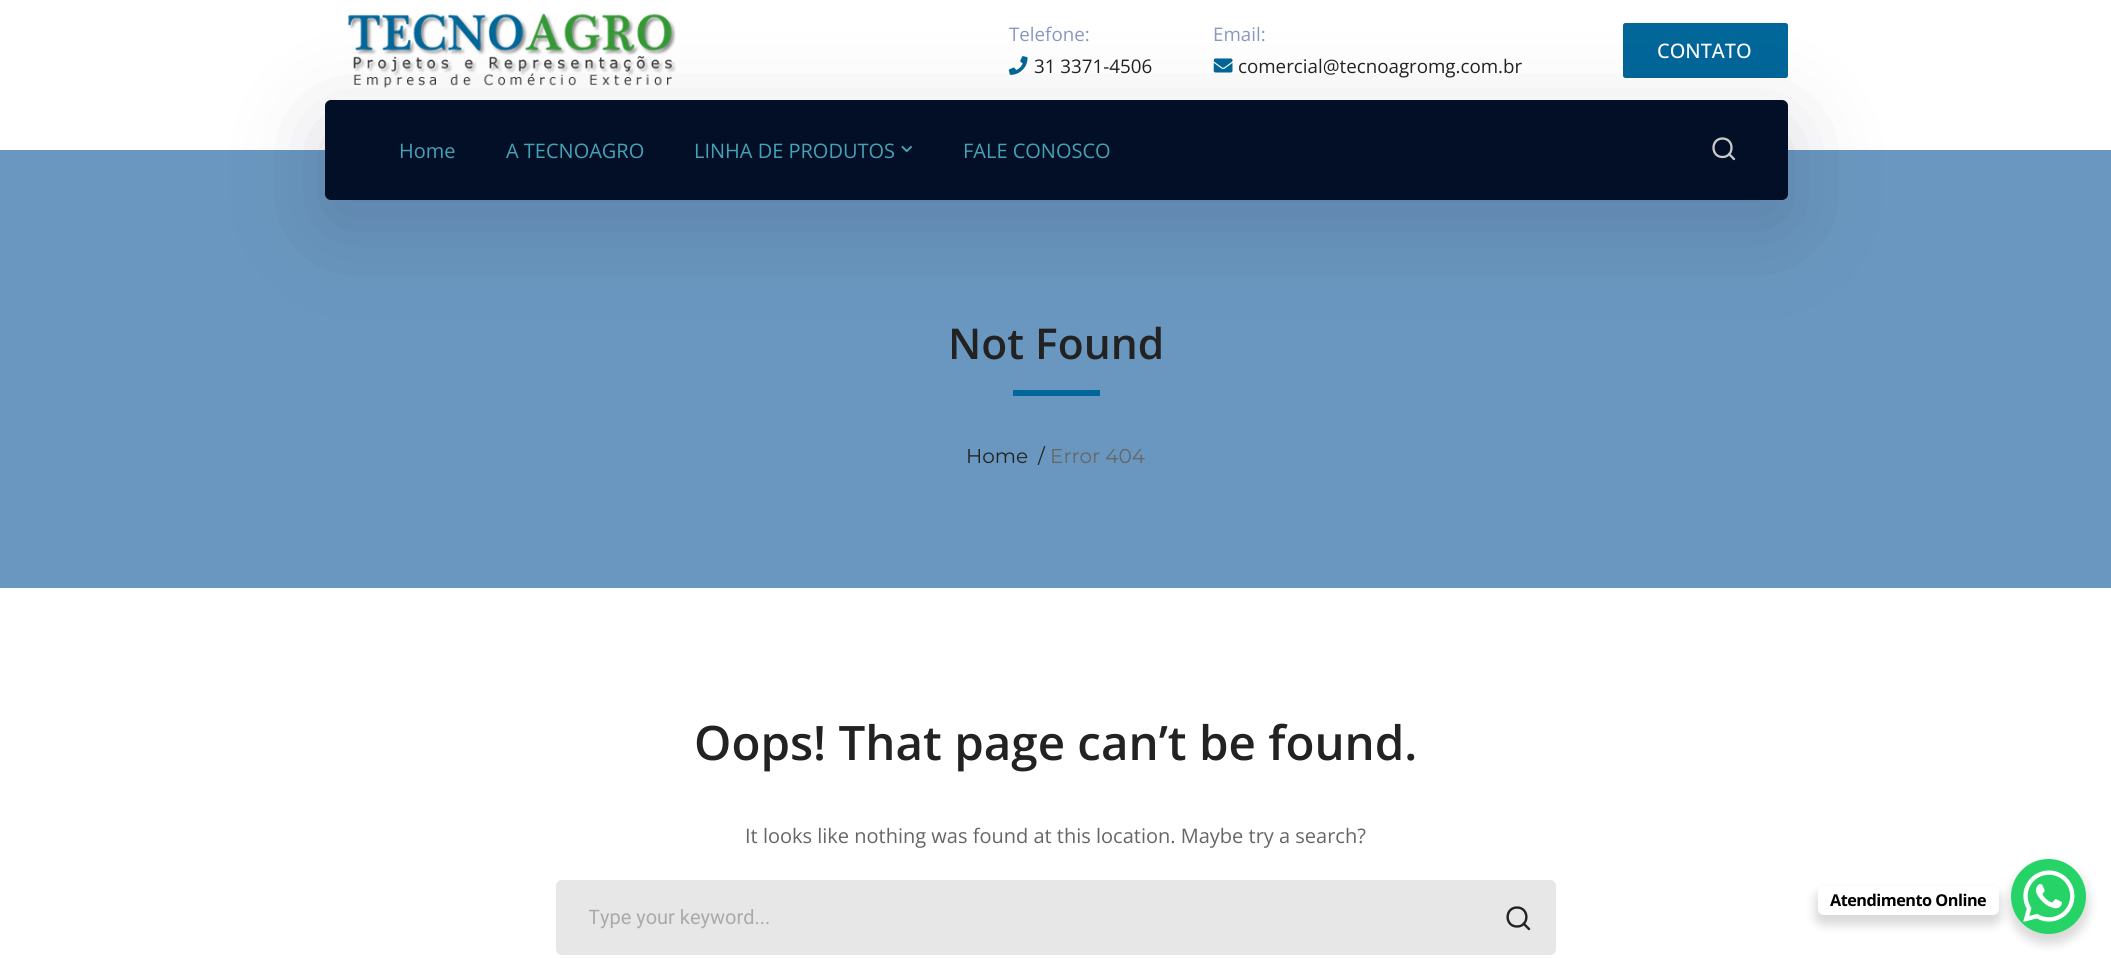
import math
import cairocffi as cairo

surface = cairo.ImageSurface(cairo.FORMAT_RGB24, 2111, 958)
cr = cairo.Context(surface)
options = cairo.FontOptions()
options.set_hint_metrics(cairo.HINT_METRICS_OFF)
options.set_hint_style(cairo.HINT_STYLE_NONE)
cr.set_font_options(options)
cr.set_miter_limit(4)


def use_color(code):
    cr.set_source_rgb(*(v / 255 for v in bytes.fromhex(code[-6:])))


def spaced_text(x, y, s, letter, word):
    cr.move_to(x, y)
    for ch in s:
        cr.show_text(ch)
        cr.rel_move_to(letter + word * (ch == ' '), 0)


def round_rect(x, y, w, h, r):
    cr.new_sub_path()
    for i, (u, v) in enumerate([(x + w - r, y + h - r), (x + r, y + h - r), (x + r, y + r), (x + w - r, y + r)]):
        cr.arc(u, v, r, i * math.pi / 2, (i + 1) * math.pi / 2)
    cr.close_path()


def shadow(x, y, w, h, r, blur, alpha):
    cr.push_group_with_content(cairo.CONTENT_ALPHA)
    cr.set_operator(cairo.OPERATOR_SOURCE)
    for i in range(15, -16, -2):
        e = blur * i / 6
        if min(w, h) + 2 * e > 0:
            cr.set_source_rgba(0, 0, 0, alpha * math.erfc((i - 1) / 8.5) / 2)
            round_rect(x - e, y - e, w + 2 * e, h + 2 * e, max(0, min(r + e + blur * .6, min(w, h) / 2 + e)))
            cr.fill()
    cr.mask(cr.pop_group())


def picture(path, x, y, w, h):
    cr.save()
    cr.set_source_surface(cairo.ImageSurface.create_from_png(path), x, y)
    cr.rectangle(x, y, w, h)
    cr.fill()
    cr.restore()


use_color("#ffffff")
cr.paint()
picture("img1.png", 347, 13, 329, 75)
cr.select_font_face("Open Sans")
cr.set_font_size(18.75)
use_color("#8a99c0")
cr.move_to(1009, 41)
cr.show_text("Telefone:")
picture("img2.png", 1008, 56, 20, 19)
use_color("#222222")
cr.move_to(1034, 73)
cr.show_text("31 3371-4506")
use_color("#8a99c0")
cr.move_to(1213, 41)
cr.show_text("Email:")
picture("img3.png", 1213, 58, 20, 15)
use_color("#222222")
cr.move_to(1238, 73)
cr.show_text("comercial@tecnoagromg.com.br")
use_color("#016699")
round_rect(1623, 23, 165, 55, 2.5)
cr.fill()
cr.select_font_face("Open Sans Medium")
cr.set_font_size(20)
use_color("#ffffff")
cr.move_to(1657, 58)
cr.show_text("CONTATO")
use_color("#6997bf")
cr.rectangle(0, 150, 2111, 438)
cr.fill()
use_color("#262a4c")
shadow(325, 125, 1463, 100, 6, 44, 0.2)
use_color("#030f27")
round_rect(325, 100, 1463, 100, 6)
cr.fill()
cr.select_font_face("Open Sans")
use_color("#44a2b5")
cr.move_to(399, 158)
cr.show_text("Home")
cr.move_to(506, 158)
cr.show_text("A TECNOAGRO")
cr.move_to(694, 158)
cr.show_text("LINHA DE PRODUTOS")
picture("img4.png", 901, 145, 11, 8)
cr.move_to(963, 158)
cr.show_text("FALE CONOSCO")
cr.new_path()
cr.move_to(1722.5, 138.5)
cr.curve_to(1734.5, 138.5, 1734.5, 157, 1722.5, 157)
cr.curve_to(1710.5, 157, 1710.5, 138.5, 1722.5, 138.5)
cr.close_path()
cr.move_to(1734, 159)
cr.line_to(1729, 154)
use_color("#cacaca")
cr.set_line_width(2.3)
cr.set_line_cap(cairo.LINE_CAP_ROUND)
cr.set_line_join(cairo.LINE_JOIN_ROUND)
cr.stroke()
cr.select_font_face("Open Sans SemiBold")
cr.set_font_size(42.5)
use_color("#222222")
cr.move_to(948, 359)
cr.show_text("Not Found")
use_color("#016699")
cr.rectangle(1013, 390, 87, 6)
cr.fill()
cr.select_font_face("Montserrat")
cr.set_font_size(20)
use_color("#222222")
cr.move_to(966, 463)
cr.show_text("Home")
cr.move_to(1038, 463)
cr.show_text("/")
use_color("#666666")
cr.move_to(1050, 463)
cr.show_text("Error 404")
cr.select_font_face("Open Sans SemiBold")
cr.set_font_size(47.5)
use_color("#222222")
cr.move_to(694, 760)
cr.show_text("Oops! That page can’t be found.")
cr.select_font_face("Open Sans")
cr.set_font_size(20)
use_color("#666666")
cr.move_to(745, 843)
cr.show_text("It looks like nothing was found at this location. Maybe try a search?")
use_color("#e7e7e7")
round_rect(556.5, 880.5, 999, 74, 5.5)
cr.fill_preserve()
cr.set_line_width(1)
cr.set_line_cap(cairo.LINE_CAP_BUTT)
cr.set_line_join(cairo.LINE_JOIN_MITER)
cr.stroke()
cr.save()
cr.rectangle(589, 906, 935, 24)
cr.clip()
cr.select_font_face("Roboto")
use_color("#aaaaaa")
cr.move_to(588, 924)
cr.show_text("Type your keyword...")
cr.restore()
cr.new_path()
cr.move_to(1517, 907.5)
cr.curve_to(1529.5, 907.5, 1529.5, 926.5, 1517, 926.5)
cr.curve_to(1504.5, 926.5, 1504.5, 907.5, 1517, 907.5)
cr.close_path()
cr.move_to(1529, 929)
cr.line_to(1523.5, 923.5)
use_color("#222222")
cr.set_line_width(2.4)
cr.set_line_cap(cairo.LINE_CAP_ROUND)
cr.set_line_join(cairo.LINE_JOIN_ROUND)
cr.stroke()
use_color("#000000")
shadow(2009, 864, 80, 80, 40, 5, 0.15)
use_color("#25d366")
cr.arc(2048.5, 896.5, 37.5, 0, 2 * math.pi)
cr.fill()
use_color("#000000")
shadow(1815, 891, 186, 34, 9, 5, 0.15)
use_color("#ffffff")
round_rect(1818, 886, 181, 29, 6)
cr.fill()
cr.select_font_face("Open Sans", cairo.FONT_SLANT_NORMAL, cairo.FONT_WEIGHT_BOLD)
cr.set_font_size(16.25)
use_color("#000000")
spaced_text(1830, 906, "Atendimento Online", -0.5, 0)
picture("img5.png", 2023, 870, 52, 52)
surface.write_to_png("result.png")
